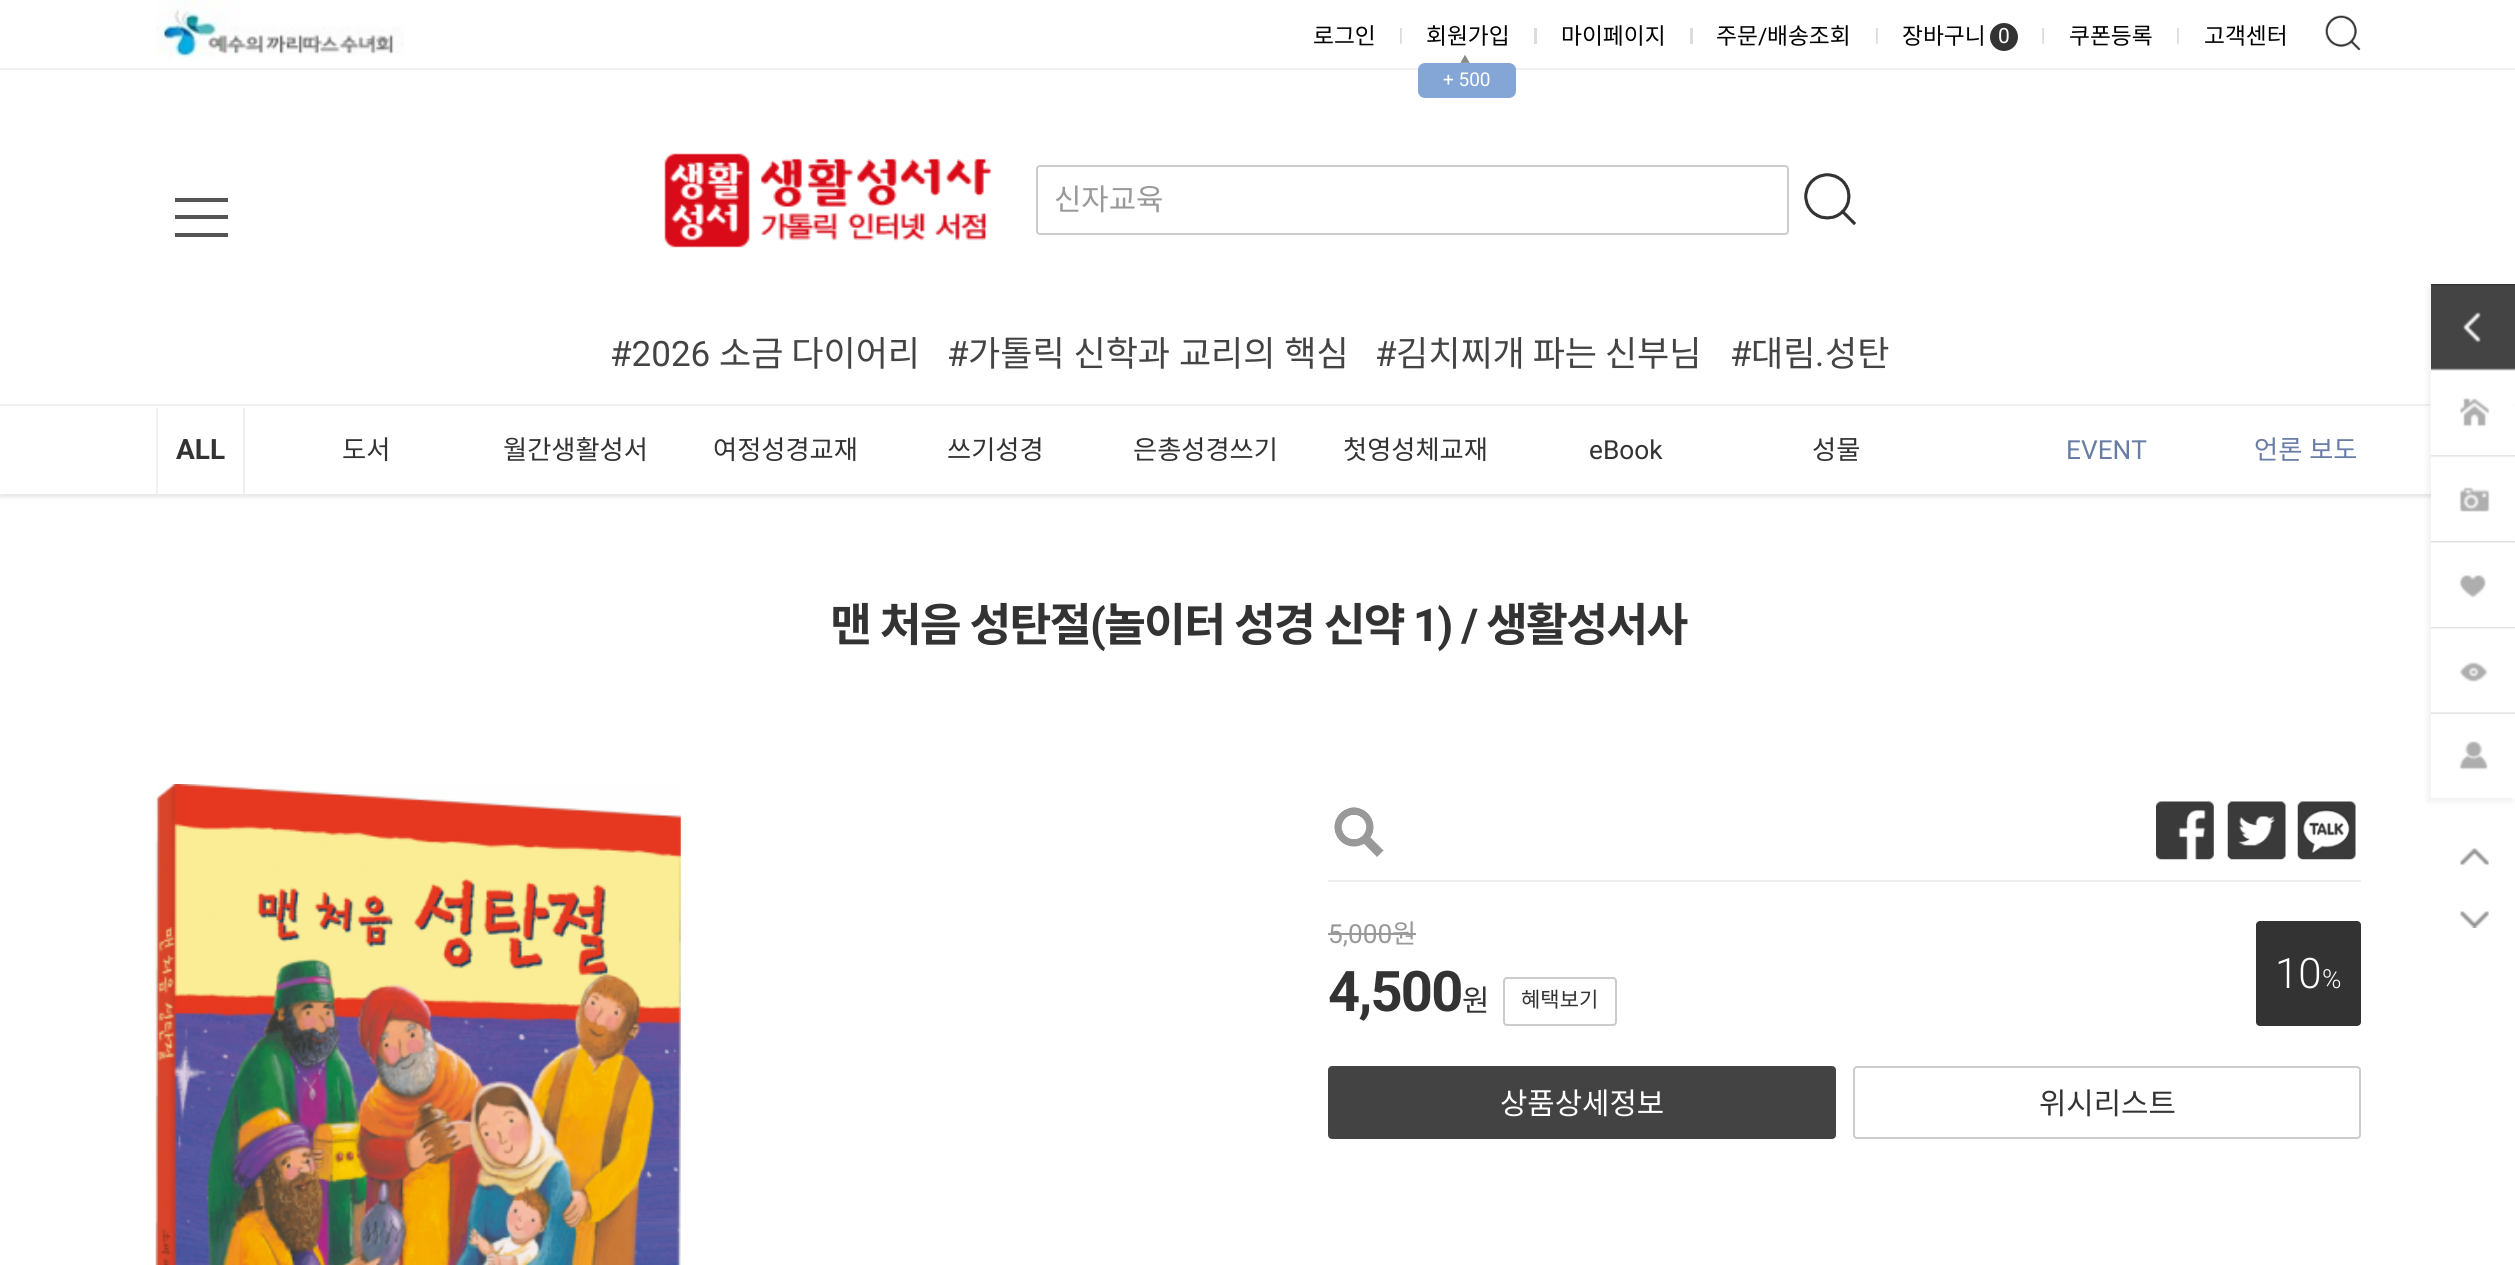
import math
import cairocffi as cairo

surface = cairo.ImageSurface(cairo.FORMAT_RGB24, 2515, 1265)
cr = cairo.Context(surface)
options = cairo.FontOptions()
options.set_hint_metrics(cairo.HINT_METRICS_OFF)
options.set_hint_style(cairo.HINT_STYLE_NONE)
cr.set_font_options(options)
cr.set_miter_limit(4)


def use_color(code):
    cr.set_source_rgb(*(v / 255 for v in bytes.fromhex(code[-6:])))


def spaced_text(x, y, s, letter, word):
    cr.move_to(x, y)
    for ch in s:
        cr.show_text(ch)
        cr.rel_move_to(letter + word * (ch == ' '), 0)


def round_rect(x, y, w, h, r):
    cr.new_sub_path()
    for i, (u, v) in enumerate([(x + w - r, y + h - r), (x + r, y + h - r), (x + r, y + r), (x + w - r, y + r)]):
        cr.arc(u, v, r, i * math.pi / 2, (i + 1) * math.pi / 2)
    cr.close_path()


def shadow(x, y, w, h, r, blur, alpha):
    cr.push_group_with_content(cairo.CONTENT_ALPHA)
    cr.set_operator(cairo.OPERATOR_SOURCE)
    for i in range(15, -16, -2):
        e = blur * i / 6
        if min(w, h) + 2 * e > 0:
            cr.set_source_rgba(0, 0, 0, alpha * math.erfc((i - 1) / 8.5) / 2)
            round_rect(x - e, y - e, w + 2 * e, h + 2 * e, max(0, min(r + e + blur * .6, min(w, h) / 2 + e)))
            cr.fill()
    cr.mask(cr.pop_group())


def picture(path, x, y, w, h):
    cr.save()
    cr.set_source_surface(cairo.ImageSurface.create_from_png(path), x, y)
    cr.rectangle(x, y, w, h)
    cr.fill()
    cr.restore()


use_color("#ffffff")
cr.paint()
use_color("#000000")
shadow(0, 4, 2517, 493, 0, 2, 0.1)
use_color("#ffffff")
cr.rectangle(0, 1, 2515, 493)
cr.fill()
use_color("#f0f0f0")
cr.rectangle(0, 68, 2515, 2)
cr.fill()
picture("img1.png", 156, 0, 248, 61)
cr.select_font_face("Noto Sans KR")
cr.set_font_size(22.75)
use_color("#000000")
cr.move_to(1313, 44)
cr.show_text("로그인")
picture("img2.png", 1400, 28, 2, 16)
cr.move_to(1426, 44)
cr.show_text("회원가입")
use_color("#84a6d6")
round_rect(1418, 63, 98, 35, 7)
cr.fill()
cr.set_font_size(10)
use_color("#8a8a8a")
cr.move_to(1460, 63)
cr.show_text("▲")
cr.select_font_face("Roboto")
cr.set_font_size(19)
use_color("#ffffff")
cr.move_to(1443, 86)
cr.show_text("+ 500")
use_color("#dcdcdc")
cr.rectangle(1534, 28, 3, 16)
cr.fill()
cr.select_font_face("Noto Sans KR")
cr.set_font_size(22.75)
use_color("#000000")
cr.move_to(1561, 44)
cr.show_text("마이페이지")
use_color("#dcdcdc")
cr.rectangle(1690, 28, 3, 16)
cr.fill()
use_color("#000000")
cr.move_to(1716, 44)
cr.show_text("주문")
cr.select_font_face("Roboto")
cr.move_to(1758, 44)
cr.show_text("/")
cr.select_font_face("Noto Sans KR")
cr.move_to(1767, 44)
cr.show_text("배송조회")
picture("img2.png", 1876, 28, 2, 16)
cr.move_to(1902, 44)
cr.show_text("장바구니")
use_color("#333333")
cr.new_path()
cr.arc(2004, 37, 14, 0, 2 * math.pi)
cr.fill()
cr.select_font_face("Roboto")
cr.set_font_size(21)
use_color("#ffffff")
cr.move_to(1998, 43)
cr.show_text("0")
picture("img3.png", 2042, 28, 2, 16)
cr.select_font_face("Noto Sans KR")
cr.set_font_size(22.75)
use_color("#000000")
cr.move_to(2069, 44)
cr.show_text("쿠폰등록")
picture("img2.png", 2177, 28, 2, 16)
cr.move_to(2204, 44)
cr.show_text("고객센터")
picture("img4.png", 2325, 15, 36, 36)
use_color("#555555")
cr.rectangle(175, 198, 53, 4)
cr.fill()
cr.rectangle(175, 215, 53, 4)
cr.fill()
cr.rectangle(175, 233, 53, 4)
cr.fill()
picture("img5.png", 664, 153, 327, 95)
round_rect(1037, 166, 751, 68, 3)
use_color("#cccccc")
cr.stroke()
cr.set_font_size(29.75)
use_color("#999999")
cr.move_to(1054, 210)
cr.show_text("신자교육")
picture("img6.png", 1804, 173, 52, 52)
cr.select_font_face("Roboto")
cr.set_font_size(35)
use_color("#444444")
cr.move_to(610, 366)
cr.show_text("#2026")
cr.select_font_face("Noto Sans KR")
cr.move_to(719, 366)
cr.show_text("소금 다이어리")
cr.select_font_face("Roboto")
cr.move_to(947, 366)
cr.show_text("#")
cr.select_font_face("Noto Sans KR")
spaced_text(968, 366, "가톨릭 신학과 교리의 핵심", 0, 1)
cr.select_font_face("Roboto")
cr.move_to(1375, 366)
cr.show_text("#")
cr.select_font_face("Noto Sans KR")
cr.move_to(1396, 366)
cr.show_text("김치찌개 파는 신부님")
cr.select_font_face("Roboto")
cr.move_to(1730, 366)
cr.show_text("#")
cr.select_font_face("Noto Sans KR")
cr.move_to(1751, 366)
cr.show_text("대림")
cr.select_font_face("Roboto")
cr.move_to(1815, 366)
cr.show_text(".")
cr.select_font_face("Noto Sans KR")
cr.move_to(1825, 366)
cr.show_text("성탄")
use_color("#f0f0f0")
cr.rectangle(0, 404, 2515, 2)
cr.fill()
cr.rectangle(243, 408, 2, 86)
cr.fill()
cr.rectangle(156, 408, 2, 86)
cr.fill()
cr.select_font_face("Roboto", cairo.FONT_SLANT_NORMAL, cairo.FONT_WEIGHT_BOLD)
cr.set_font_size(28)
use_color("#333333")
cr.move_to(176, 459)
cr.show_text("ALL")
cr.select_font_face("Noto Sans KR")
cr.set_font_size(26.25)
cr.move_to(342, 459)
cr.show_text("도서")
cr.move_to(503, 459)
cr.show_text("월간생활성서")
cr.move_to(713, 459)
cr.show_text("여정성경교재")
cr.move_to(947, 459)
cr.show_text("쓰기성경")
cr.move_to(1133, 459)
cr.show_text("은총성경쓰기")
cr.move_to(1343, 459)
cr.show_text("첫영성체교재")
cr.select_font_face("Roboto")
cr.move_to(1589, 459)
cr.show_text("eBook")
cr.select_font_face("Noto Sans KR")
cr.move_to(1812, 459)
cr.show_text("성물")
cr.select_font_face("Roboto")
use_color("#697da6")
cr.move_to(2066, 459)
cr.show_text("EVENT")
cr.select_font_face("Noto Sans KR")
spaced_text(2254, 459, "언론 보도", 0, 1)
cr.save()
cr.set_fill_rule(cairo.FILL_RULE_EVEN_ODD)
cr.new_path()
cr.move_to(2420, 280)
cr.line_to(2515, 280)
cr.line_to(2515, 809)
cr.line_to(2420, 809)
cr.close_path()
cr.move_to(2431, 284)
cr.line_to(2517, 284)
cr.line_to(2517, 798)
cr.line_to(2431, 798)
cr.close_path()
cr.clip()
use_color("#000000")
shadow(2427, 287, 86, 515, 0, 2, 0.05)
cr.restore()
use_color("#333333")
cr.rectangle(2431, 284, 84, 2)
cr.fill()
use_color("#e0e0e0")
cr.rectangle(2431, 369, 84, 2)
cr.fill()
picture("img7.png", 2431, 285, 84, 85)
cr.rectangle(2431, 455, 84, 2)
cr.fill()
picture("img8.png", 2430, 370, 85, 86)
picture("img9.png", 2431, 456, 84, 56)
cr.rectangle(2431, 541, 84, 2)
cr.fill()
picture("img10.png", 2431, 542, 84, 56)
cr.rectangle(2431, 627, 84, 2)
cr.fill()
cr.rectangle(2431, 712, 84, 2)
cr.fill()
picture("img11.png", 2431, 628, 84, 85)
picture("img12.png", 2431, 713, 84, 57)
picture("img13.png", 2459, 848, 30, 17)
picture("img14.png", 2459, 911, 30, 17)
cr.select_font_face("Noto Sans KR", cairo.FONT_SLANT_NORMAL, cairo.FONT_WEIGHT_BOLD)
cr.set_font_size(45.5)
use_color("#333333")
spaced_text(830, 641, "맨 처음 성탄절", -1.75, 1)
cr.select_font_face("Roboto", cairo.FONT_SLANT_NORMAL, cairo.FONT_WEIGHT_BOLD)
spaced_text(1090, 641, "(", -1.75, 0)
cr.select_font_face("Noto Sans KR", cairo.FONT_SLANT_NORMAL, cairo.FONT_WEIGHT_BOLD)
spaced_text(1104, 641, "놀이터 성경 신약", -1.75, 1)
cr.select_font_face("Roboto", cairo.FONT_SLANT_NORMAL, cairo.FONT_WEIGHT_BOLD)
spaced_text(1413, 641, "1) /", -1.75, 0)
cr.select_font_face("Noto Sans KR", cairo.FONT_SLANT_NORMAL, cairo.FONT_WEIGHT_BOLD)
spaced_text(1486, 641, "생활성서사", -1.75, 0)
picture("img15.png", 155, 784, 526, 481)
use_color("#eeeeee")
cr.rectangle(1328, 880, 1033, 2)
cr.fill()
picture("img16.png", 1334, 807, 50, 50)
picture("img17.png", 2156, 801, 58, 59)
picture("img18.png", 2227, 801, 59, 59)
picture("img19.png", 2297, 801, 59, 59)
cr.select_font_face("Roboto")
cr.set_font_size(26.25)
use_color("#999999")
cr.move_to(1328, 943)
cr.show_text("5,000")
cr.select_font_face("Noto Sans KR")
cr.move_to(1392, 943)
cr.show_text("원")
cr.rectangle(1328, 933, 88, 2)
cr.fill()
cr.select_font_face("Roboto", cairo.FONT_SLANT_NORMAL, cairo.FONT_WEIGHT_BOLD)
cr.set_font_size(56)
use_color("#333333")
spaced_text(1328, 1011, "4,500", -1.75, 0)
cr.select_font_face("Noto Sans KR")
cr.set_font_size(29.75)
cr.move_to(1462, 1011)
cr.show_text("원")
round_rect(1504, 978, 112, 47, 3)
use_color("#cccccc")
cr.stroke()
cr.set_font_size(21)
use_color("#333333")
cr.move_to(1521, 1007)
cr.show_text("혜택보기")
round_rect(2256, 921, 105, 105, 4)
cr.fill()
cr.select_font_face("Roboto Light")
cr.set_font_size(42)
use_color("#ffffff")
cr.move_to(2275, 988)
cr.show_text("10")
cr.set_font_size(26.25)
cr.move_to(2322, 988)
cr.show_text("%")
use_color("#434343")
round_rect(1329, 1067, 506, 71, 3)
cr.fill_preserve()
cr.stroke()
cr.select_font_face("Noto Sans KR")
cr.set_font_size(29.75)
use_color("#ffffff")
cr.move_to(1500, 1114)
cr.show_text("상품상세정보")
round_rect(1854, 1067, 506, 71, 3)
use_color("#cccccc")
cr.stroke()
use_color("#333333")
cr.move_to(2039, 1114)
cr.show_text("위시리스트")
surface.write_to_png("result.png")
